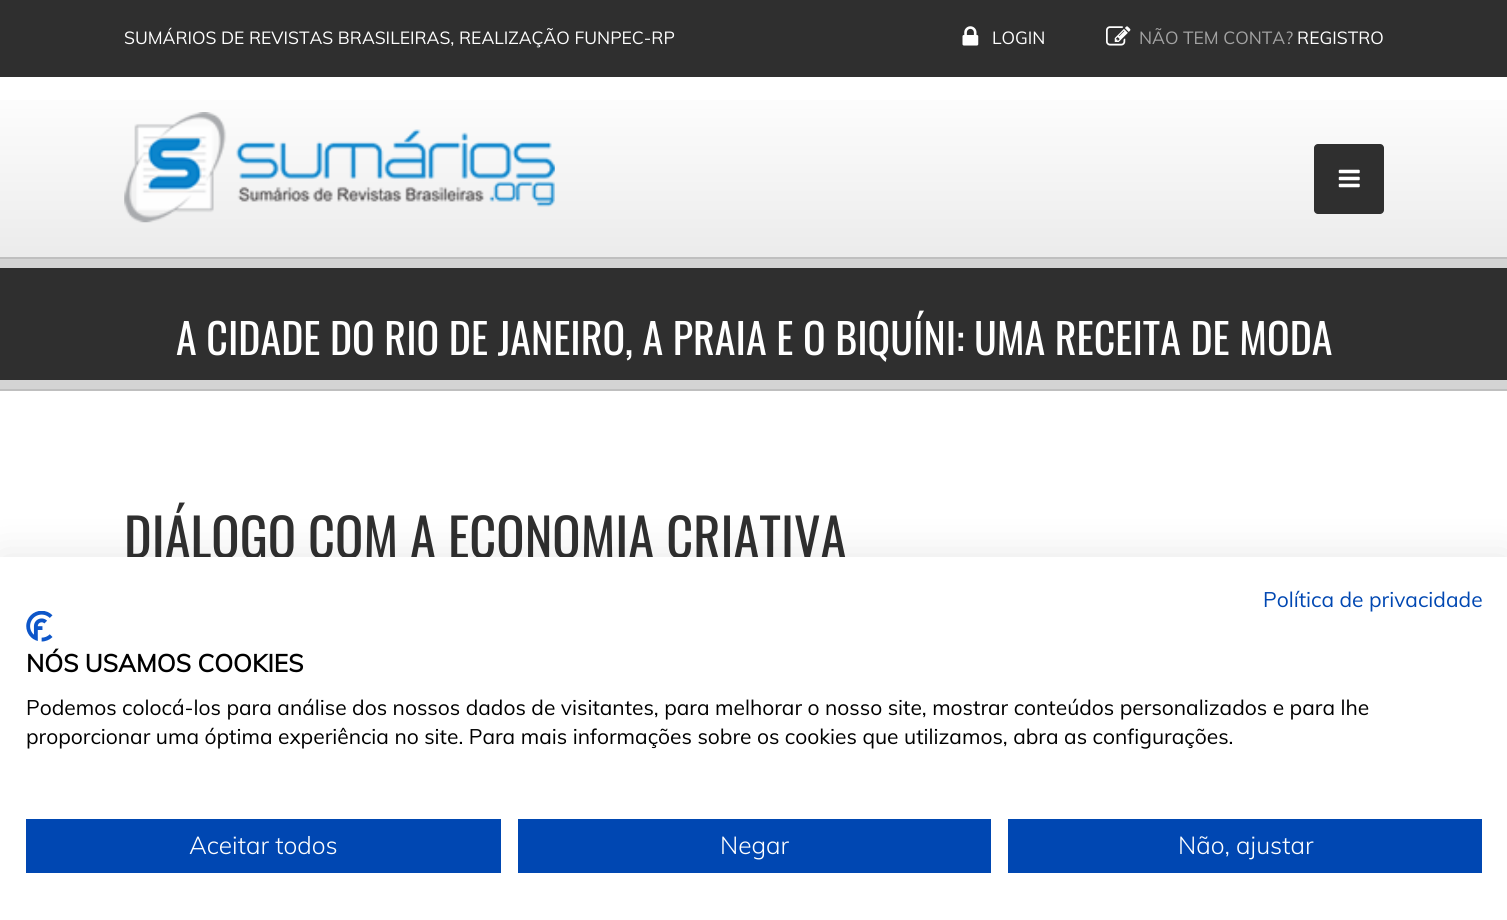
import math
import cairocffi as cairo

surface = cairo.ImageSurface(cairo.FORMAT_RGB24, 1507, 920)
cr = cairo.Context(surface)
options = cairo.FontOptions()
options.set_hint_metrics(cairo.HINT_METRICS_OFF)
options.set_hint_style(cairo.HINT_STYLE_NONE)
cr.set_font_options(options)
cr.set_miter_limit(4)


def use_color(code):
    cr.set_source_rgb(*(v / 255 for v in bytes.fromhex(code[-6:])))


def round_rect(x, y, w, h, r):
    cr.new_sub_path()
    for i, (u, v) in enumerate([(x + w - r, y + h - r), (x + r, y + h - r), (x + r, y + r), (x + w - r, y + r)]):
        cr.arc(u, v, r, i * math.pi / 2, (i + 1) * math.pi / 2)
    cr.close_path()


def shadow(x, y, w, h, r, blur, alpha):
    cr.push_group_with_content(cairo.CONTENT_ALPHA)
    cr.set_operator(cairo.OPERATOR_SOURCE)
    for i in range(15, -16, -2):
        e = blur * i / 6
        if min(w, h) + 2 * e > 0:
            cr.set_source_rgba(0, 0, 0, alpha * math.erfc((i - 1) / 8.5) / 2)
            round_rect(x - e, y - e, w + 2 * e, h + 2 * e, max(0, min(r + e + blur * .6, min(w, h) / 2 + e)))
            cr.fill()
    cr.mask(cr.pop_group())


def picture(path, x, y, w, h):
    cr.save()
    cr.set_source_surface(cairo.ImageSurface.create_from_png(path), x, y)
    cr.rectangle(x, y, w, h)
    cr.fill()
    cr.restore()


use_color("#ffffff")
cr.paint()
use_color("#2f2f2f")
cr.rectangle(0, 0, 1507, 77)
cr.fill()
cr.select_font_face("Muli")
cr.set_font_size(17.5)
use_color("#ffffff")
cr.move_to(124, 44)
cr.show_text("SUMÁRIOS DE REVISTAS BRASILEIRAS, REALIZAÇÃO FUNPEC-RP")
picture("img1.png", 962, 26, 17, 20)
cr.move_to(992, 44)
cr.show_text("LOGIN")
picture("img2.png", 1106, 26, 25, 20)
use_color("#a3a3a3")
cr.move_to(1139, 44)
cr.show_text("NÃO TEM CONTA?")
use_color("#ffffff")
cr.move_to(1297, 44)
cr.show_text("REGISTRO")
use_color("#ececec")
cr.rectangle(0, 252, 1507, 5)
cr.fill()
gradient = cairo.LinearGradient(754, 77, 754, 252)
gradient.add_color_stop_rgba(0, 1, 1, 1, 1)
gradient.add_color_stop_rgba(1, 0.925, 0.925, 0.925, 1)
cr.set_source(gradient)
cr.rectangle(0, 100, 1507, 152)
cr.fill()
picture("img3.png", 124, 112, 431, 111)
use_color("#2f2f2f")
round_rect(1314, 144, 70, 70, 4)
cr.fill()
picture("img4.png", 1338, 169, 22, 19)
cr.rectangle(0, 268, 1507, 112)
cr.fill()
use_color("#d4d4d4")
cr.rectangle(0, 259, 1507, 9)
cr.fill()
cr.rectangle(0, 380, 1507, 9)
cr.fill()
use_color("#bfbfbf")
cr.rectangle(0, 257, 1507, 2)
cr.fill()
cr.select_font_face("Oswald")
cr.set_font_size(42)
use_color("#ffffff")
cr.move_to(176, 355)
cr.show_text("A CIDADE DO RIO DE JANEIRO, A PRAIA E O BIQUÍNI: UMA RECEITA DE MODA")
use_color("#bfbfbf")
cr.rectangle(0, 389, 1507, 2)
cr.fill()
cr.set_font_size(52.5)
use_color("#2f2f2f")
cr.move_to(124, 558)
cr.show_text("DIÁLOGO COM A ECONOMIA CRIATIVA")
use_color("#000000")
shadow(0, 557, 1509, 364, 0, 21, 0.1)
use_color("#ffffff")
cr.rectangle(0, 557, 1507, 363)
cr.fill()
cr.select_font_face("Muli")
cr.set_font_size(21)
use_color("#0047b2")
cr.move_to(1263, 607)
cr.show_text("Política de privacidade")
picture("img5.png", 26, 611, 27, 31)
cr.select_font_face("Muli", cairo.FONT_SLANT_NORMAL, cairo.FONT_WEIGHT_BOLD)
cr.set_font_size(24.5)
use_color("#000000")
cr.move_to(26, 672)
cr.show_text("NÓS USAMOS COOKIES")
cr.select_font_face("Muli")
cr.set_font_size(21)
cr.move_to(26, 715)
cr.show_text("Podemos colocá-los para análise dos nossos dados de visitantes, para melhorar o nosso site, mostrar conteúdos personalizados e para lhe")
cr.move_to(26, 744)
cr.show_text("proporcionar uma óptima experiência no site. Para mais informações sobre os cookies que utilizamos, abra as configurações.")
use_color("#0047b2")
cr.rectangle(26, 819, 475, 54)
cr.fill()
cr.select_font_face("Muli Light")
cr.set_font_size(24.5)
use_color("#ffffff")
cr.move_to(189, 854)
cr.show_text("Aceitar todos")
use_color("#0047b2")
cr.rectangle(518, 819, 473, 54)
cr.fill()
use_color("#ffffff")
cr.move_to(720, 854)
cr.show_text("Negar")
use_color("#0047b2")
cr.rectangle(1008, 819, 474, 54)
cr.fill()
use_color("#ffffff")
cr.move_to(1178, 854)
cr.show_text("Não, ajustar")
surface.write_to_png("result.png")
